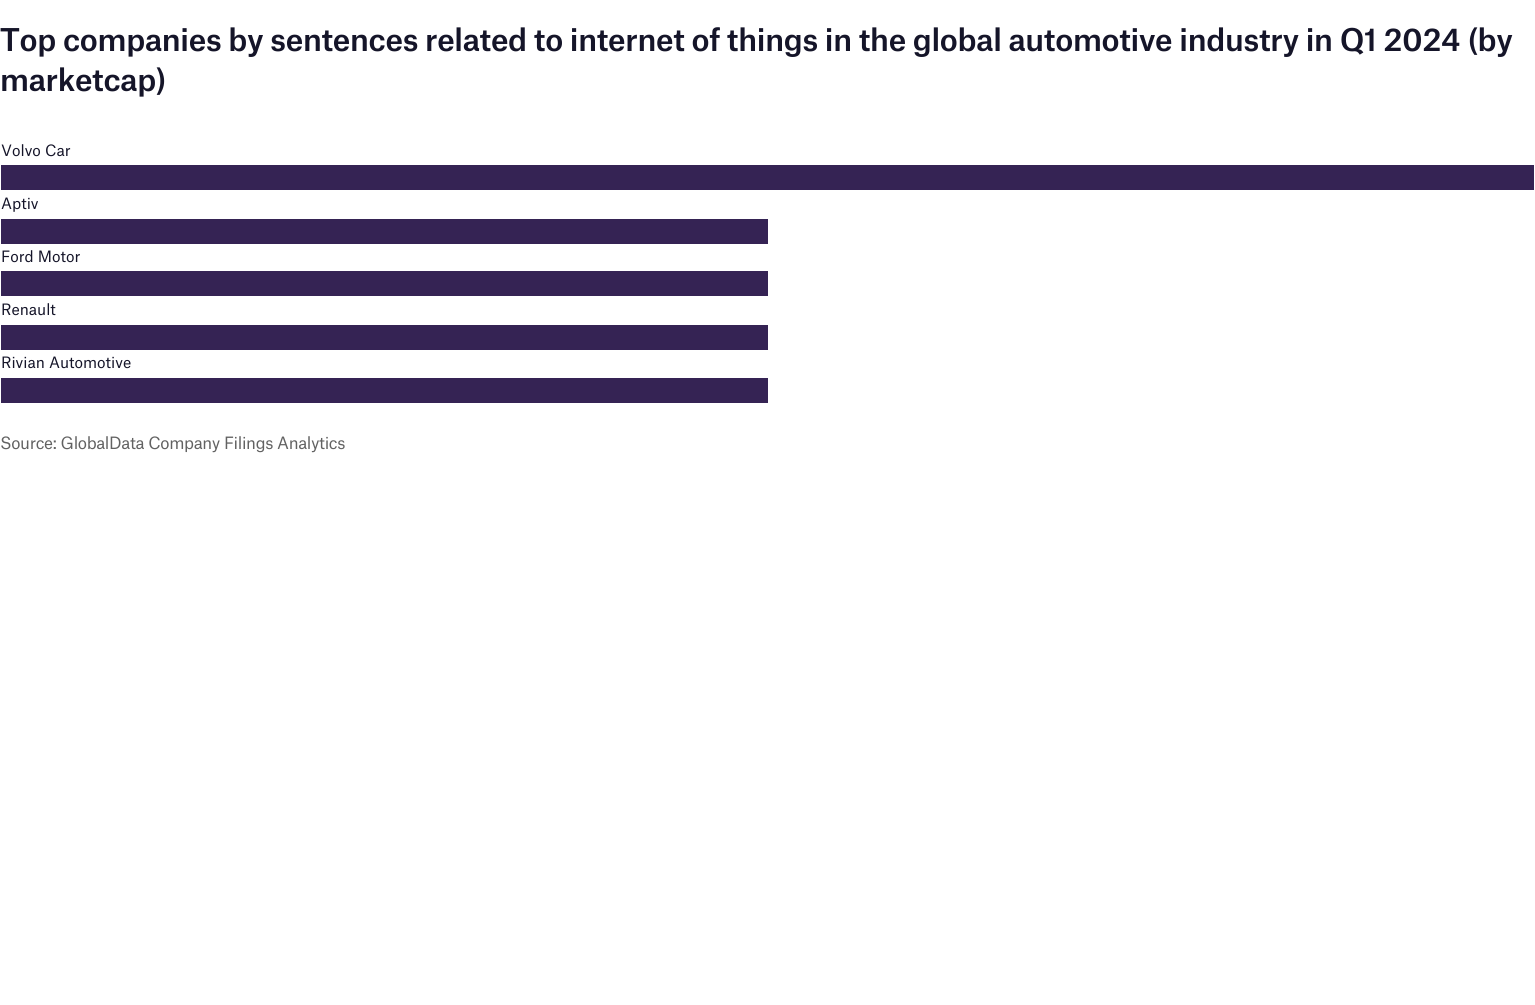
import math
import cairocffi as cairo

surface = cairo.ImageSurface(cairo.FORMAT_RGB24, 1535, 1005)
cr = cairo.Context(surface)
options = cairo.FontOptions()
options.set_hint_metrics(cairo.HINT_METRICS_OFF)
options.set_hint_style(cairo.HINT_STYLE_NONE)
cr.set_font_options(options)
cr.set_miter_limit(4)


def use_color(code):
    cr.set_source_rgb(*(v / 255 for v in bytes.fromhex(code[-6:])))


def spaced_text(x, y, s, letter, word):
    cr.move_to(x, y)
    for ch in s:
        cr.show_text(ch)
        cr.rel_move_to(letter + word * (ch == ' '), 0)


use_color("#ffffff")
cr.paint()
cr.select_font_face("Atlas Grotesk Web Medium")
cr.set_font_size(30)
use_color("#151529")
spaced_text(0, 51, "Top companies by sentences related to internet of things in the global automotive industry in Q1 2024 (by", -0.3, 0)
spaced_text(0, 91, "marketcap)", -0.3, 0)
cr.select_font_face("Atlas Grotesk Web")
cr.set_font_size(15)
cr.move_to(1, 156)
cr.show_text("Volvo Car")
use_color("#352354")
cr.rectangle(1, 165, 1533, 25)
cr.fill()
use_color("#151529")
cr.move_to(1, 209)
cr.show_text("Aptiv")
use_color("#352354")
cr.rectangle(1, 219, 767, 25)
cr.fill()
use_color("#151529")
cr.move_to(1, 262)
cr.show_text("Ford Motor")
use_color("#352354")
cr.rectangle(1, 271, 767, 25)
cr.fill()
use_color("#151529")
cr.move_to(1, 315)
cr.show_text("Renault")
use_color("#352354")
cr.rectangle(1, 325, 767, 25)
cr.fill()
use_color("#151529")
cr.move_to(1, 368)
cr.show_text("Rivian Automotive")
use_color("#352354")
cr.rectangle(1, 378, 767, 25)
cr.fill()
cr.set_font_size(16.25)
use_color("#626262")
spaced_text(0, 449, "Source: GlobalData Company Filings Analytics", -0.35, 0)
surface.write_to_png("result.png")
